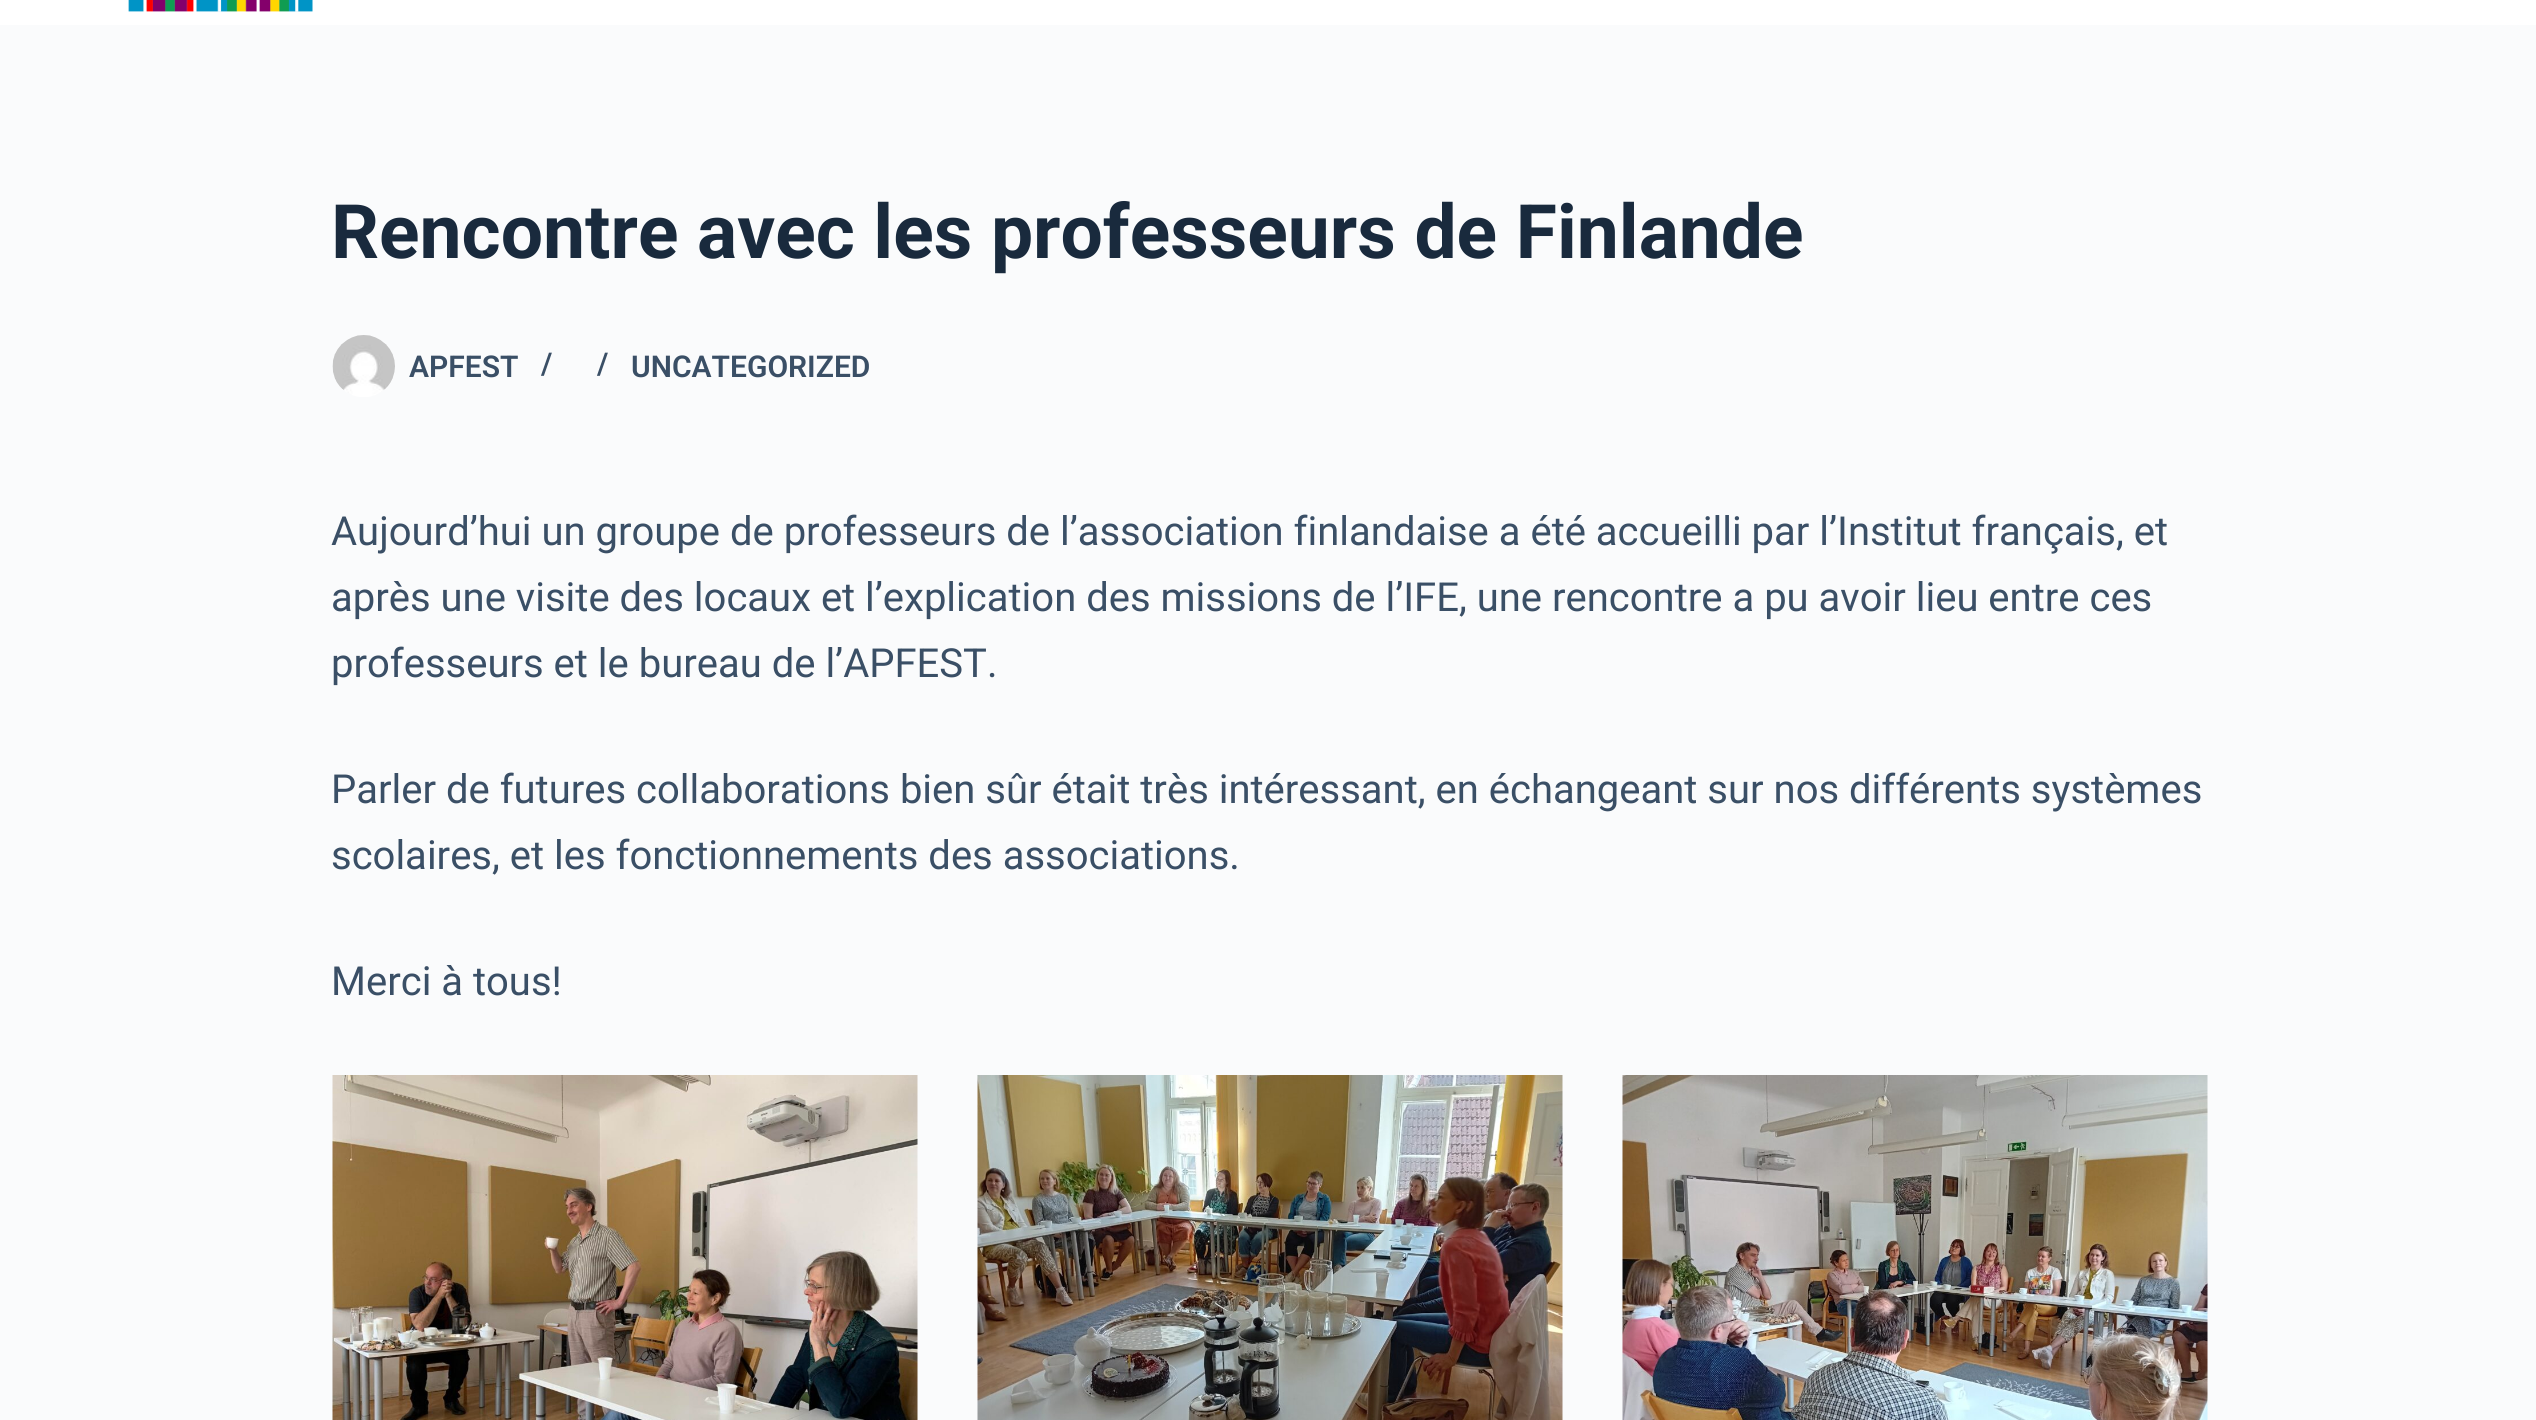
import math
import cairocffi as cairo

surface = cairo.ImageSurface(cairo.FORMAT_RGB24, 2536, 1420)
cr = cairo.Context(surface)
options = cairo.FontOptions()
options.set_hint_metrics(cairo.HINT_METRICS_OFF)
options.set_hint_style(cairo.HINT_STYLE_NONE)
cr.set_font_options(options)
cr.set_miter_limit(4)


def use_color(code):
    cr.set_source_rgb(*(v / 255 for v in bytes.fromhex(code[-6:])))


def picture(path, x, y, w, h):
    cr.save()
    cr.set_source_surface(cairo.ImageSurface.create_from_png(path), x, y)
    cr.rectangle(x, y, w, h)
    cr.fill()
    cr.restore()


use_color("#fafbfc")
cr.paint()
use_color("#ffffff")
cr.rectangle(0, 0, 2536, 25)
cr.fill()
picture("img1.png", 128, 0, 185, 12)
cr.select_font_face("Roboto", cairo.FONT_SLANT_NORMAL, cairo.FONT_WEIGHT_BOLD)
cr.set_font_size(75)
use_color("#192a3d")
cr.move_to(331, 258)
cr.show_text("Rencontre avec les professeurs de Finlande")
picture("img2.png", 332, 335, 63, 62)
cr.select_font_face("Roboto SemiBold")
cr.set_font_size(30)
use_color("#3a4f66")
cr.move_to(409, 377)
cr.show_text("APFEST")
cr.move_to(541, 374)
cr.show_text("/")
cr.move_to(597, 374)
cr.show_text("/")
cr.move_to(631, 377)
cr.show_text("UNCATEGORIZED")
cr.select_font_face("Roboto")
cr.set_font_size(40)
cr.move_to(331, 545)
cr.show_text("Aujourd’hui un groupe de professeurs de l’association finlandaise a été accueilli par l’Institut français, et")
cr.move_to(331, 611)
cr.show_text("après une visite des locaux et l’explication des missions de l’IFE, une rencontre a pu avoir lieu entre ces")
cr.move_to(331, 677)
cr.show_text("professeurs et le bureau de l’APFEST.")
cr.move_to(331, 803)
cr.show_text("Parler de futures collaborations bien sûr était très intéressant, en échangeant sur nos différents systèmes")
cr.move_to(331, 869)
cr.show_text("scolaires, et les fonctionnements des associations.")
cr.move_to(331, 995)
cr.show_text("Merci à tous!")
picture("img3.png", 332, 1075, 586, 345)
picture("img4.png", 977, 1075, 586, 345)
picture("img5.png", 1622, 1075, 586, 345)
surface.write_to_png("result.png")
